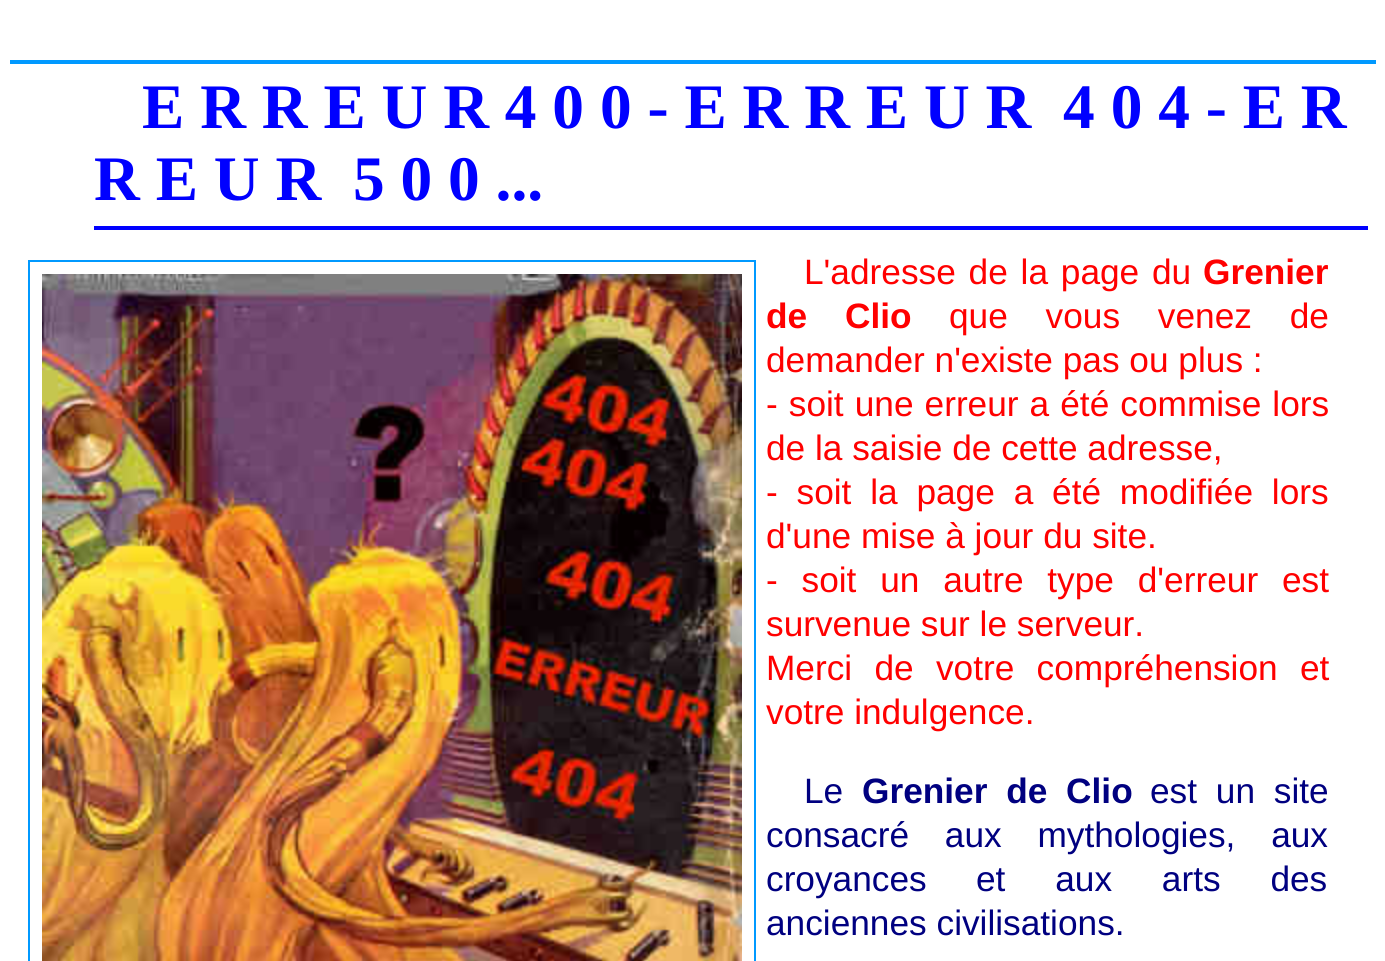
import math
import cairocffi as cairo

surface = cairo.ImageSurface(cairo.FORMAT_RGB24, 1385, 961)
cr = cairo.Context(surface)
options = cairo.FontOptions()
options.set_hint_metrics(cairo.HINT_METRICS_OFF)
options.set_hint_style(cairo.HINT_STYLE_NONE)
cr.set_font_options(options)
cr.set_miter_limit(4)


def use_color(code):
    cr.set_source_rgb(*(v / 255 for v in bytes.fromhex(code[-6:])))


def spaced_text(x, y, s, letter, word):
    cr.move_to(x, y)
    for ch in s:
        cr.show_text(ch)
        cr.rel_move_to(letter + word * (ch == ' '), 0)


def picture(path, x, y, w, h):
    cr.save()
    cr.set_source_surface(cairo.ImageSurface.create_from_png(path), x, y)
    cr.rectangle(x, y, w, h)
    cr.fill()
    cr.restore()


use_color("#ffffff")
cr.paint()
use_color("#0099ff")
cr.rectangle(10, 60, 1366, 4)
cr.fill()
use_color("#0000ff")
cr.rectangle(94, 226, 1274, 4)
cr.fill()
cr.select_font_face("Liberation Serif", cairo.FONT_SLANT_NORMAL, cairo.FONT_WEIGHT_BOLD)
cr.set_font_size(63.4)
cr.move_to(142, 128)
cr.show_text("E R R E U R 4 0 0 - E R R E U R  4 0 4 - E R")
cr.move_to(94, 200)
cr.show_text("R E U R  5 0 0 ...")
cr.rectangle(29, 261, 726, 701)
use_color("#0099ff")
cr.stroke()
picture("img1.png", 42, 274, 700, 687)
cr.select_font_face("Liberation Sans")
cr.set_font_size(35.25)
use_color("#ff0000")
spaced_text(804, 284, "L'adresse de la page du", 0, 3)
cr.select_font_face("Liberation Sans", cairo.FONT_SLANT_NORMAL, cairo.FONT_WEIGHT_BOLD)
cr.move_to(1203, 284)
cr.show_text("Grenier")
spaced_text(766, 328, "de Clio", 0, 28)
cr.select_font_face("Liberation Sans")
spaced_text(949, 328, "que vous venez de", 0, 28)
cr.move_to(766, 372)
cr.show_text("demander n'existe pas ou plus :")
spaced_text(766, 416, "- soit une erreur a été commise lors", 0, 1.25)
cr.move_to(766, 460)
cr.show_text("de la saisie de cette adresse,")
spaced_text(766, 504, "- soit la page a été modifiée lors", 0, 9)
cr.move_to(766, 548)
cr.show_text("d'une mise à jour du site.")
spaced_text(766, 592, "- soit un autre type d'erreur est", 0, 14)
cr.move_to(766, 636)
cr.show_text("survenue sur le serveur.")
spaced_text(766, 680, "Merci de votre compréhension et", 0, 12.5)
cr.move_to(766, 724)
cr.show_text("votre indulgence.")
use_color("#000080")
cr.move_to(804, 803)
cr.show_text("Le")
cr.select_font_face("Liberation Sans", cairo.FONT_SLANT_NORMAL, cairo.FONT_WEIGHT_BOLD)
spaced_text(862, 803, "Grenier de Clio", 0, 9)
cr.select_font_face("Liberation Sans")
spaced_text(1150, 803, "est un site", 0, 9)
spaced_text(766, 847, "consacré aux mythologies, aux", 0, 26)
cr.move_to(766, 891)
cr.show_text("croyances")
spaced_text(976, 891, "et aux arts des", 0, 40)
cr.move_to(766, 935)
cr.show_text("anciennes civilisations.")
surface.write_to_png("result.png")
